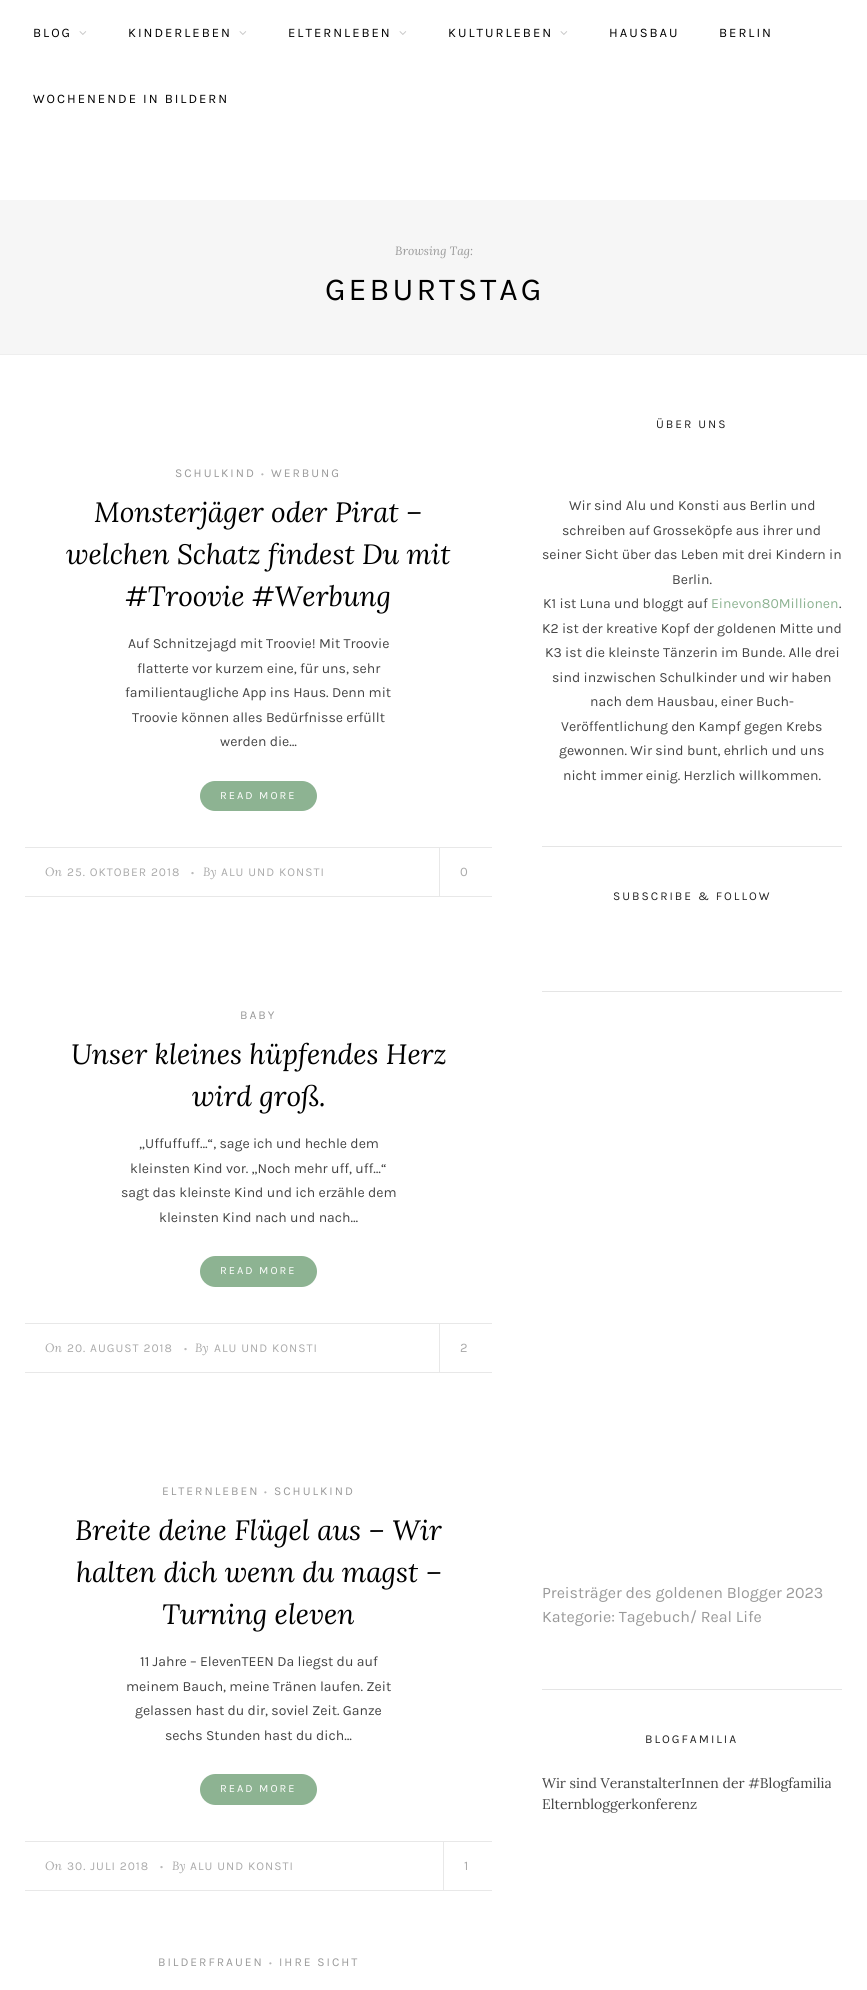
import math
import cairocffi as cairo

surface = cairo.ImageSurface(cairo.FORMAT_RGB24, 867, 1990)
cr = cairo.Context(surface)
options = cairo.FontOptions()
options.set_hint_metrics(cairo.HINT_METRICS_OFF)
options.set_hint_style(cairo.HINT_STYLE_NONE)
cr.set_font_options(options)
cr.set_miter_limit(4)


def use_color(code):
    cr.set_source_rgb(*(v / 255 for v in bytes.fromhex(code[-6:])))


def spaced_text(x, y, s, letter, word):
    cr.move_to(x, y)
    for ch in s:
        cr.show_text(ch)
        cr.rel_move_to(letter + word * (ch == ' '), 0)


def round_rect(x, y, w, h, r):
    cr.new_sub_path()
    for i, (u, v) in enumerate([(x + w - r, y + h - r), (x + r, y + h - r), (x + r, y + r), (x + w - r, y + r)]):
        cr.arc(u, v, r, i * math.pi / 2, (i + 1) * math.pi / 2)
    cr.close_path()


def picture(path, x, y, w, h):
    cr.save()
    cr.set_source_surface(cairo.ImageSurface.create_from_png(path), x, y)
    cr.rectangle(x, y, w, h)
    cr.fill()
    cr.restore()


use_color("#ffffff")
cr.paint()
cr.select_font_face("Karla")
cr.set_font_size(13)
use_color("#000000")
spaced_text(33, 37, "BLOG", 2, 0)
picture("img1.png", 79, 31, 8, 4)
spaced_text(128, 37, "KINDERLEBEN", 2, 0)
picture("img1.png", 239, 31, 8, 4)
spaced_text(288, 37, "ELTERNLEBEN", 2, 0)
picture("img1.png", 399, 31, 8, 4)
spaced_text(448, 37, "KULTURLEBEN", 2, 0)
picture("img1.png", 560, 31, 8, 4)
spaced_text(609, 37, "HAUSBAU", 2, 0)
spaced_text(719, 37, "BERLIN", 2, 0)
spaced_text(33, 103, "WOCHENENDE IN BILDERN", 2, 0)
use_color("#f6f6f6")
cr.rectangle(0, 200, 867, 154)
cr.fill()
use_color("#eeeeee")
cr.rectangle(0, 354, 867, 1)
cr.fill()
cr.select_font_face("Lora", cairo.FONT_SLANT_ITALIC)
cr.set_font_size(12)
use_color("#999999")
cr.move_to(395, 255)
cr.show_text("Browsing Tag:")
cr.select_font_face("Karla")
cr.set_font_size(32)
use_color("#000000")
spaced_text(325, 300, "GEBURTSTAG", 3, 0)
cr.set_font_size(12)
use_color("#999999")
spaced_text(175, 477, "SCHULKIND", 2, 0)
cr.set_font_size(10)
use_color("#b5b5b5")
cr.move_to(261, 477)
cr.show_text("•")
cr.set_font_size(12)
use_color("#999999")
spaced_text(271, 477, "WERBUNG", 2, 0)
cr.select_font_face("Lora", cairo.FONT_SLANT_ITALIC)
cr.set_font_size(28)
use_color("#000000")
cr.move_to(94, 522)
cr.show_text("Monsterjäger oder Pirat –")
cr.move_to(66, 564)
cr.show_text("welchen Schatz findest Du mit")
cr.move_to(125, 606)
cr.show_text("#Troovie #Werbung")
cr.select_font_face("Karla")
cr.set_font_size(14)
use_color("#444444")
cr.move_to(128, 648)
cr.show_text("Auf Schnitzejagd mit Troovie! Mit Troovie")
cr.move_to(137, 673)
cr.show_text("flatterte vor kurzem eine, für uns, sehr")
cr.move_to(125, 697)
cr.show_text("familientaugliche App ins Haus. Denn mit")
cr.move_to(132, 722)
cr.show_text("Troovie können alles Bedürfnisse erfüllt")
cr.move_to(220, 746)
cr.show_text("werden die…")
use_color("#8db392")
round_rect(200, 781, 117, 30, 15)
cr.fill()
cr.set_font_size(11)
use_color("#ffffff")
spaced_text(220, 799, "READ MORE", 2, 0)
use_color("#e8e8e8")
cr.rectangle(25, 847, 467, 1)
cr.fill()
cr.rectangle(25, 896, 467, 1)
cr.fill()
cr.select_font_face("Lora", cairo.FONT_SLANT_ITALIC)
cr.set_font_size(12)
use_color("#aaaaaa")
cr.move_to(45, 876)
cr.show_text("On")
cr.select_font_face("Karla")
spaced_text(67, 876, "25. OKTOBER 2018", 1, 0)
cr.set_font_size(11)
use_color("#bbbbbb")
spaced_text(191, 876, "•", 1, 0)
cr.select_font_face("Lora", cairo.FONT_SLANT_ITALIC)
cr.set_font_size(12)
use_color("#aaaaaa")
cr.move_to(203, 876)
cr.show_text("By")
cr.select_font_face("Karla")
spaced_text(221, 876, "ALU UND KONSTI", 1, 0)
use_color("#e8e8e8")
cr.rectangle(439, 848, 1, 48)
cr.fill()
cr.set_font_size(13)
use_color("#aaaaaa")
cr.move_to(460, 876)
cr.show_text("0")
cr.set_font_size(12)
use_color("#999999")
spaced_text(240, 1019, "BABY", 2, 0)
cr.select_font_face("Lora", cairo.FONT_SLANT_ITALIC)
cr.set_font_size(28)
use_color("#000000")
cr.move_to(71, 1064)
cr.show_text("Unser kleines hüpfendes Herz")
cr.move_to(192, 1106)
cr.show_text("wird groß.")
cr.select_font_face("Karla")
cr.set_font_size(14)
use_color("#444444")
cr.move_to(139, 1148)
cr.show_text("„Uffuffuff…“, sage ich und hechle dem")
cr.move_to(130, 1173)
cr.show_text("kleinsten Kind vor. „Noch mehr uff, uff…“")
cr.move_to(121, 1197)
cr.show_text("sagt das kleinste Kind und ich erzähle dem")
cr.move_to(159, 1222)
cr.show_text("kleinsten Kind nach und nach…")
use_color("#8db392")
round_rect(200, 1256, 117, 31, 15.5)
cr.fill()
cr.set_font_size(11)
use_color("#ffffff")
spaced_text(220, 1274, "READ MORE", 2, 0)
use_color("#e8e8e8")
cr.rectangle(25, 1323, 467, 1)
cr.fill()
cr.rectangle(25, 1372, 467, 1)
cr.fill()
cr.select_font_face("Lora", cairo.FONT_SLANT_ITALIC)
cr.set_font_size(12)
use_color("#aaaaaa")
cr.move_to(45, 1352)
cr.show_text("On")
cr.select_font_face("Karla")
spaced_text(67, 1352, "20. AUGUST 2018", 1, 0)
cr.set_font_size(11)
use_color("#bbbbbb")
spaced_text(184, 1352, "•", 1, 0)
cr.select_font_face("Lora", cairo.FONT_SLANT_ITALIC)
cr.set_font_size(12)
use_color("#aaaaaa")
cr.move_to(195, 1352)
cr.show_text("By")
cr.select_font_face("Karla")
spaced_text(214, 1352, "ALU UND KONSTI", 1, 0)
use_color("#e8e8e8")
cr.rectangle(439, 1324, 1, 48)
cr.fill()
cr.set_font_size(13)
use_color("#aaaaaa")
cr.move_to(460, 1352)
cr.show_text("2")
cr.set_font_size(12)
use_color("#999999")
spaced_text(162, 1495, "ELTERNLEBEN", 2, 0)
cr.set_font_size(10)
use_color("#b5b5b5")
cr.move_to(264, 1495)
cr.show_text("•")
cr.set_font_size(12)
use_color("#999999")
spaced_text(274, 1495, "SCHULKIND", 2, 0)
cr.select_font_face("Lora", cairo.FONT_SLANT_ITALIC)
cr.set_font_size(28)
use_color("#000000")
cr.move_to(75, 1540)
cr.show_text("Breite deine Flügel aus – Wir")
cr.move_to(76, 1582)
cr.show_text("halten dich wenn du magst –")
cr.move_to(162, 1624)
cr.show_text("Turning eleven")
cr.select_font_face("Karla")
cr.set_font_size(14)
use_color("#444444")
cr.move_to(140, 1666)
cr.show_text("11 Jahre – ElevenTEEN Da liegst du auf")
cr.move_to(126, 1691)
cr.show_text("meinem Bauch, meine Tränen laufen. Zeit")
cr.move_to(135, 1715)
cr.show_text("gelassen hast du dir, soviel Zeit. Ganze")
cr.move_to(165, 1740)
cr.show_text("sechs Stunden hast du dich…")
use_color("#8db392")
round_rect(200, 1774, 117, 31, 15.5)
cr.fill()
cr.set_font_size(11)
use_color("#ffffff")
spaced_text(220, 1792, "READ MORE", 2, 0)
use_color("#e8e8e8")
cr.rectangle(25, 1841, 467, 1)
cr.fill()
cr.rectangle(25, 1890, 467, 1)
cr.fill()
cr.select_font_face("Lora", cairo.FONT_SLANT_ITALIC)
cr.set_font_size(12)
use_color("#aaaaaa")
cr.move_to(45, 1870)
cr.show_text("On")
cr.select_font_face("Karla")
spaced_text(67, 1870, "30. JULI 2018", 1, 0)
cr.set_font_size(11)
use_color("#bbbbbb")
spaced_text(160, 1870, "•", 1, 0)
cr.select_font_face("Lora", cairo.FONT_SLANT_ITALIC)
cr.set_font_size(12)
use_color("#aaaaaa")
cr.move_to(172, 1870)
cr.show_text("By")
cr.select_font_face("Karla")
spaced_text(190, 1870, "ALU UND KONSTI", 1, 0)
use_color("#e8e8e8")
cr.rectangle(443, 1842, 1, 48)
cr.fill()
cr.set_font_size(13)
use_color("#aaaaaa")
cr.move_to(464, 1870)
cr.show_text("1")
cr.set_font_size(12)
use_color("#999999")
spaced_text(158, 1966, "BILDERFRAUEN", 2, 0)
cr.set_font_size(10)
use_color("#b5b5b5")
cr.move_to(269, 1966)
cr.show_text("•")
cr.set_font_size(12)
use_color("#999999")
spaced_text(279, 1966, "IHRE SICHT", 2, 0)
use_color("#e5e5e5")
cr.rectangle(542, 846, 300, 1)
cr.fill()
use_color("#222222")
spaced_text(656, 428, "ÜBER UNS", 2, 0)
cr.set_font_size(14)
use_color("#444444")
cr.move_to(569, 510)
cr.show_text("Wir sind Alu und Konsti aus Berlin und")
cr.move_to(562, 535)
cr.show_text("schreiben auf Grosseköpfe aus ihrer und")
cr.move_to(542, 559)
cr.show_text("seiner Sicht über das Leben mit drei Kindern in")
cr.move_to(672, 584)
cr.show_text("Berlin.")
cr.move_to(543, 608)
cr.show_text("K1 ist Luna und bloggt auf")
use_color("#8db392")
cr.move_to(711, 608)
cr.show_text("Einevon80Millionen")
use_color("#444444")
cr.move_to(839, 608)
cr.show_text(".")
cr.move_to(542, 633)
cr.show_text("K2 ist der kreative Kopf der goldenen Mitte und")
cr.move_to(545, 657)
cr.show_text("K3 ist die kleinste Tänzerin im Bunde. Alle drei")
cr.move_to(552, 682)
cr.show_text("sind inzwischen Schulkinder und wir haben")
cr.move_to(590, 706)
cr.show_text("nach dem Hausbau, einer Buch-")
cr.move_to(561, 731)
cr.show_text("Veröffentlichung den Kampf gegen Krebs")
cr.move_to(559, 755)
cr.show_text("gewonnen. Wir sind bunt, ehrlich und uns")
cr.move_to(563, 780)
cr.show_text("nicht immer einig. Herzlich willkommen.")
use_color("#e5e5e5")
cr.rectangle(542, 991, 300, 1)
cr.fill()
cr.set_font_size(12)
use_color("#222222")
spaced_text(613, 900, "SUBSCRIBE & FOLLOW", 2, 0)
use_color("#e5e5e5")
cr.rectangle(542, 1689, 300, 1)
cr.fill()
cr.set_font_size(16)
use_color("#999999")
cr.move_to(542, 1598)
cr.show_text("Preisträger des goldenen Blogger 2023")
cr.move_to(542, 1622)
cr.show_text("Kategorie: Tagebuch/ Real Life")
cr.set_font_size(12)
use_color("#222222")
spaced_text(645, 1743, "BLOGFAMILIA", 2, 0)
cr.select_font_face("Lora")
cr.set_font_size(14)
use_color("#444444")
cr.move_to(542, 1788)
cr.show_text("Wir sind VeranstalterInnen der #Blogfamilia")
cr.move_to(542, 1809)
cr.show_text("Elternbloggerkonferenz")
surface.write_to_png("result.png")
